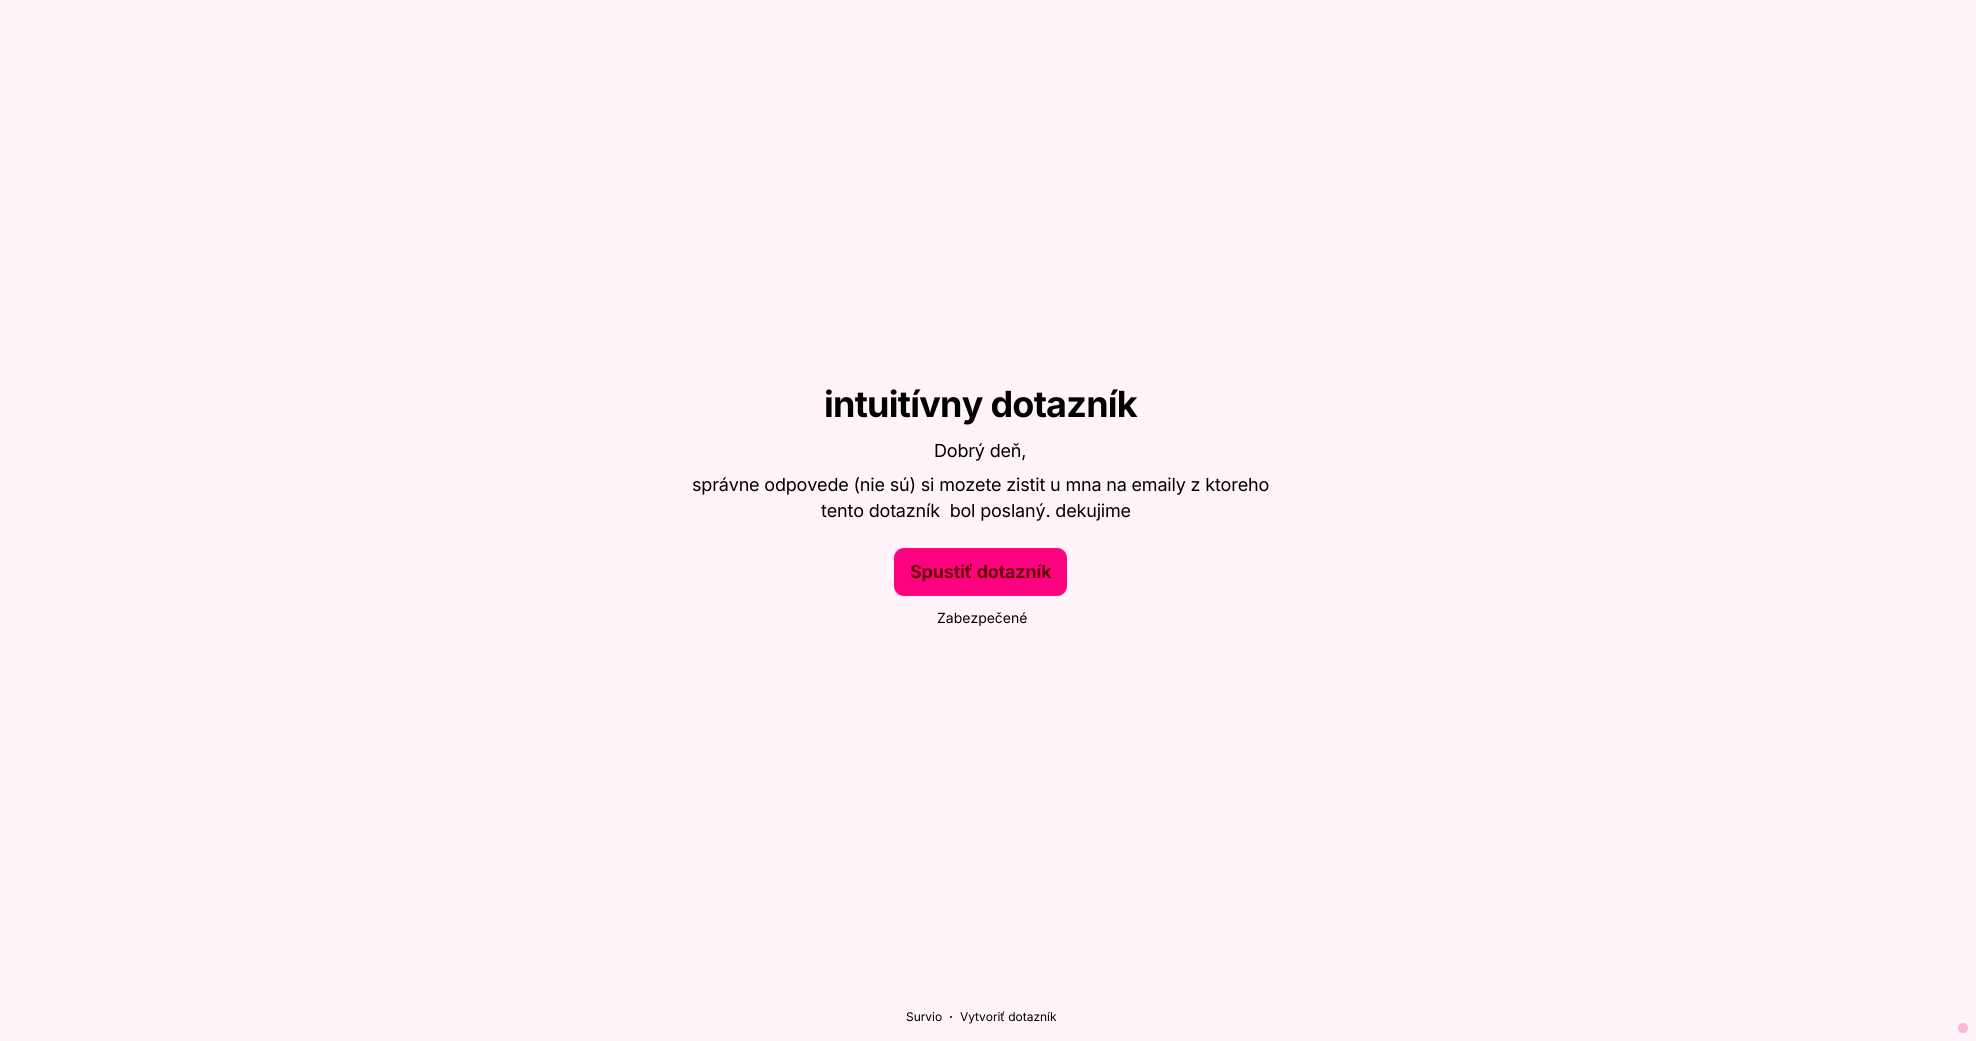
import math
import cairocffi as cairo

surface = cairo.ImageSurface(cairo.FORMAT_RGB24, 1976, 1041)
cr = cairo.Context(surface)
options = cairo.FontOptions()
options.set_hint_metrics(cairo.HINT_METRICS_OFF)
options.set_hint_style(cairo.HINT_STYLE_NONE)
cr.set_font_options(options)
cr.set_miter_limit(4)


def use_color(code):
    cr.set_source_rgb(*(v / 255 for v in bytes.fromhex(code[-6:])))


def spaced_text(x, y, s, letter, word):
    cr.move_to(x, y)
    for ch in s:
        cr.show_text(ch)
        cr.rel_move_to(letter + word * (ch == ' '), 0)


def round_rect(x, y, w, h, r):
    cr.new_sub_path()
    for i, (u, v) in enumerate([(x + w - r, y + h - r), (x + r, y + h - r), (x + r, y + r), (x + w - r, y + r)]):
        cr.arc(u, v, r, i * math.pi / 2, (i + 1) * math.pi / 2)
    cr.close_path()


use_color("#fff4f9")
cr.paint()
cr.select_font_face("Inter", cairo.FONT_SLANT_NORMAL, cairo.FONT_WEIGHT_BOLD)
cr.set_font_size(36)
use_color("#000000")
spaced_text(824, 417, "intuitívny dotazník", -0.75, 0)
cr.select_font_face("Inter")
cr.set_font_size(18)
spaced_text(934, 457, "Dobrý deň,", -0.18, 0)
spaced_text(692, 491, "správne odpovede (nie sú) si mozete zistit u mna na emaily z ktoreho", -0.18, 0)
spaced_text(821, 517, "tento dotazník  bol poslaný. dekujime", -0.18, 0)
use_color("#ff0080")
round_rect(894, 548, 173, 48, 10)
cr.fill()
cr.select_font_face("Inter", cairo.FONT_SLANT_NORMAL, cairo.FONT_WEIGHT_BOLD)
use_color("#660000")
spaced_text(910, 578, "Spustiť dotazník", -0.18, 0)
cr.select_font_face("Inter")
cr.set_font_size(14)
use_color("#000000")
cr.move_to(937, 623)
cr.show_text("Zabezpečené")
cr.set_font_size(12)
cr.move_to(906, 1021)
cr.show_text("Survio")
cr.new_path()
cr.arc(951, 1017, 1, 0, 2 * math.pi)
cr.fill()
cr.move_to(960, 1021)
cr.show_text("Vytvoriť dotazník")
use_color("#fab7d8")
cr.new_path()
cr.arc(1963, 1028, 5, 0, 2 * math.pi)
cr.fill()
surface.write_to_png("result.png")
